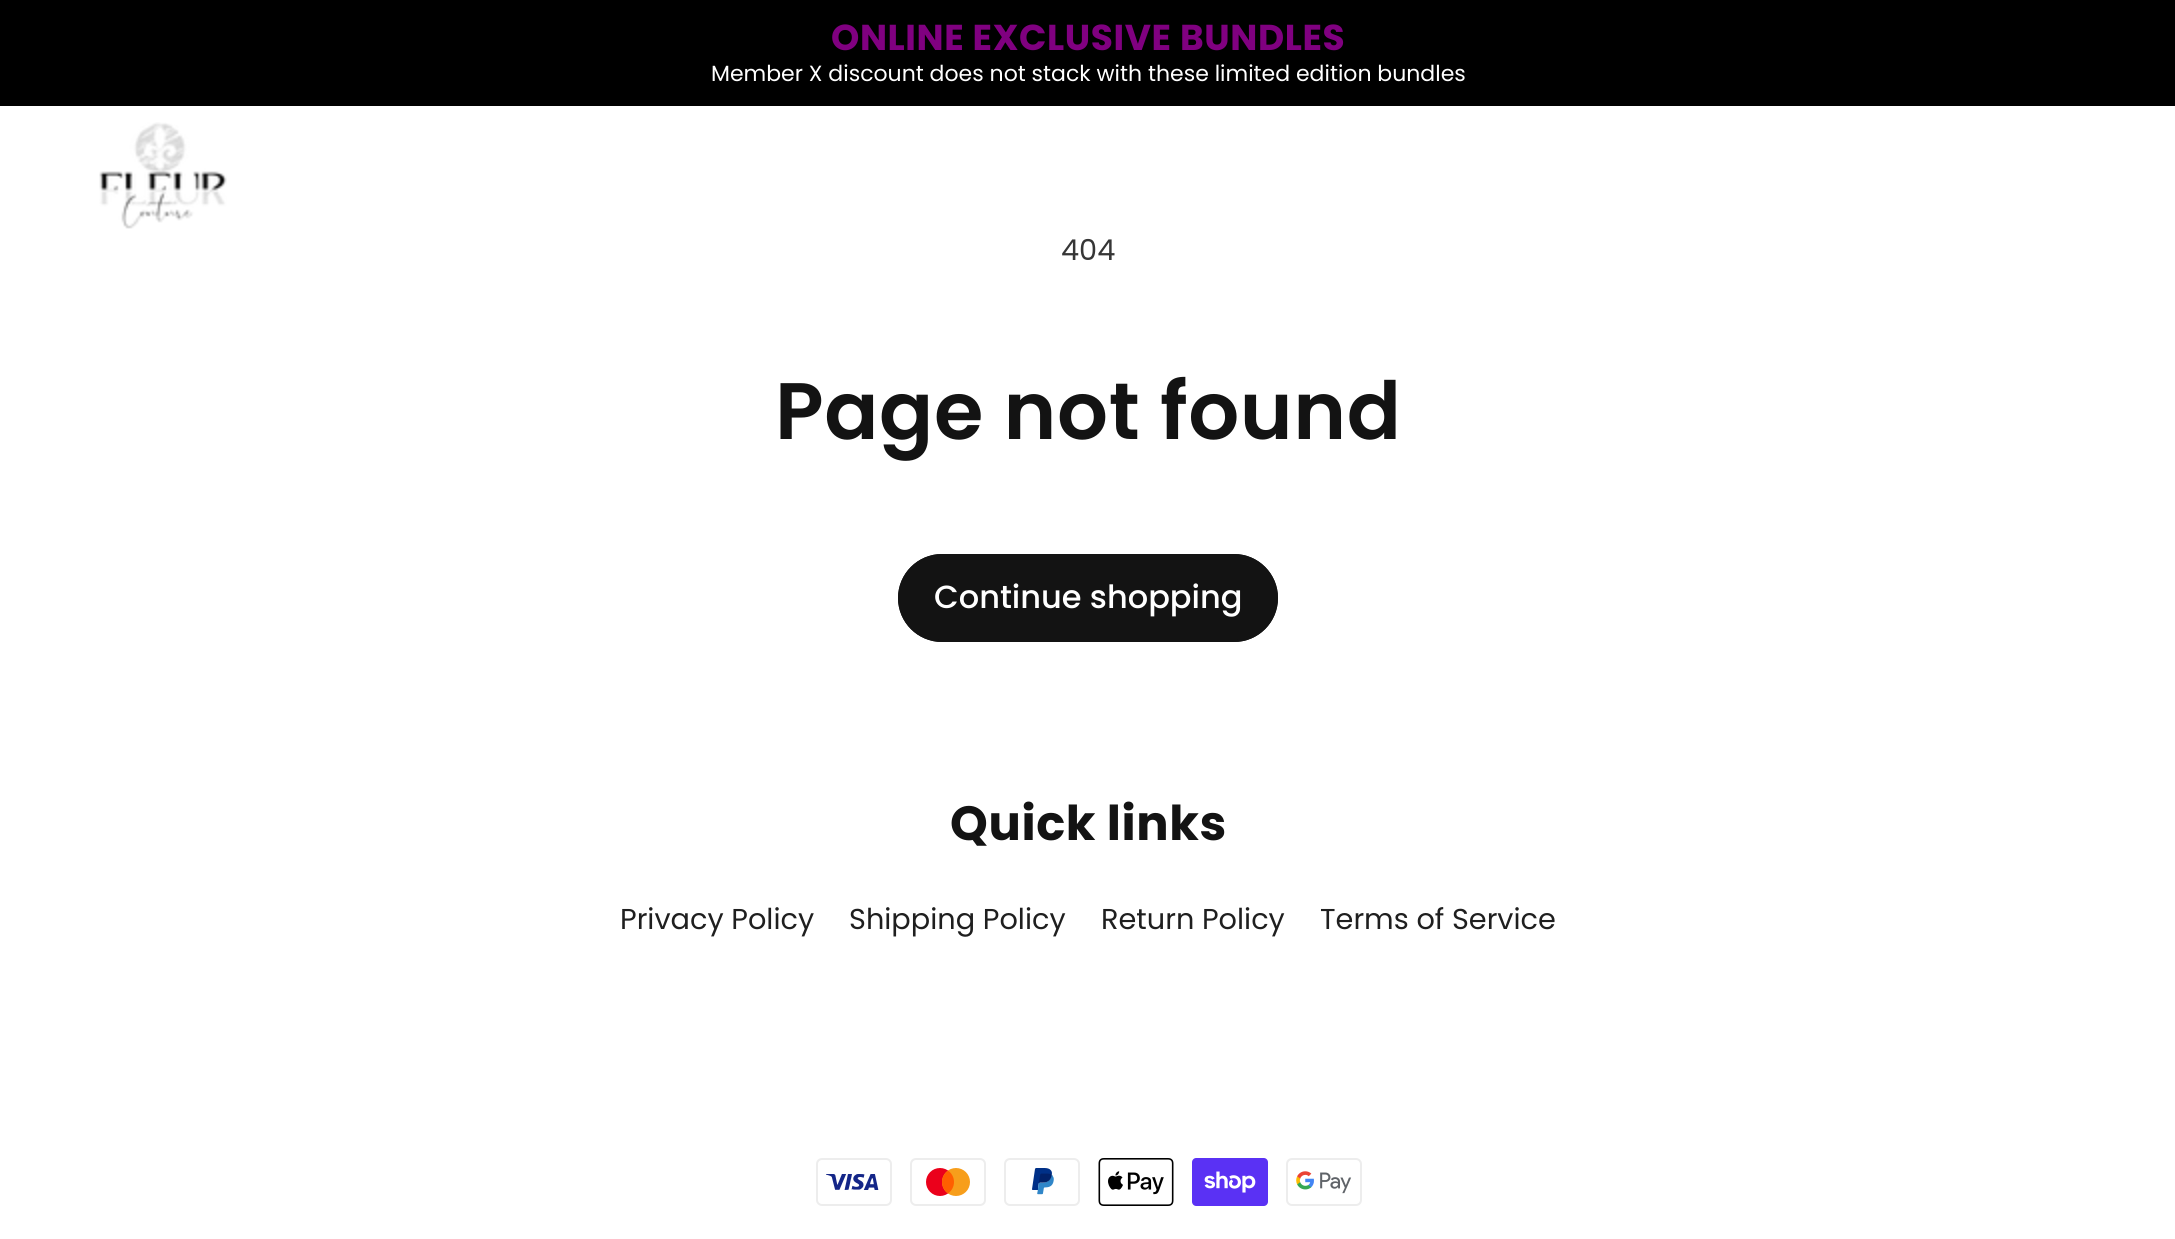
import math
import cairocffi as cairo

surface = cairo.ImageSurface(cairo.FORMAT_RGB24, 2175, 1239)
cr = cairo.Context(surface)
options = cairo.FontOptions()
options.set_hint_metrics(cairo.HINT_METRICS_OFF)
options.set_hint_style(cairo.HINT_STYLE_NONE)
cr.set_font_options(options)
cr.set_miter_limit(4)


def use_color(code):
    cr.set_source_rgb(*(v / 255 for v in bytes.fromhex(code[-6:])))


def spaced_text(x, y, s, letter, word):
    cr.move_to(x, y)
    for ch in s:
        cr.show_text(ch)
        cr.rel_move_to(letter + word * (ch == ' '), 0)


def round_rect(x, y, w, h, r):
    cr.new_sub_path()
    for i, (u, v) in enumerate([(x + w - r, y + h - r), (x + r, y + h - r), (x + r, y + r), (x + w - r, y + r)]):
        cr.arc(u, v, r, i * math.pi / 2, (i + 1) * math.pi / 2)
    cr.close_path()


def picture(path, x, y, w, h):
    cr.save()
    cr.set_source_surface(cairo.ImageSurface.create_from_png(path), x, y)
    cr.rectangle(x, y, w, h)
    cr.fill()
    cr.restore()


use_color("#ffffff")
cr.paint()
use_color("#000000")
cr.rectangle(0, 0, 2175, 106)
cr.fill()
cr.select_font_face("Poppins", cairo.FONT_SLANT_NORMAL, cairo.FONT_WEIGHT_BOLD)
cr.set_font_size(36)
use_color("#800080")
spaced_text(831, 50, "ONLINE EXCLUSIVE BUNDLES", 0.6, 0)
cr.select_font_face("Poppins")
cr.set_font_size(22)
use_color("#ffffff")
cr.move_to(711, 81)
cr.show_text("Member X discount does not stack with these limited edition bundles")
picture("img1.png", 99, 122, 128, 107)
cr.set_font_size(28.75)
use_color("#363636")
cr.move_to(1061, 260)
cr.show_text("404")
cr.select_font_face("Poppins SemiBold")
cr.set_font_size(80)
use_color("#131313")
spaced_text(775, 439, "Page not found", 0.6, 0)
round_rect(898, 554, 380, 88, 44)
cr.fill()
round_rect(899, 555, 378, 86, 43)
cr.stroke()
cr.select_font_face("Poppins Medium")
cr.set_font_size(32)
use_color("#ffffff")
cr.move_to(934, 608)
cr.show_text("Continue shopping")
cr.select_font_face("Poppins", cairo.FONT_SLANT_NORMAL, cairo.FONT_WEIGHT_BOLD)
cr.set_font_size(48)
use_color("#131313")
spaced_text(950, 840, "Quick links", 0.6, 0)
cr.select_font_face("Poppins")
cr.set_font_size(28.75)
use_color("#1f1f1f")
cr.move_to(620, 929)
cr.show_text("Privacy Policy")
cr.move_to(849, 929)
cr.show_text("Shipping Policy")
cr.move_to(1101, 929)
cr.show_text("Return Policy")
cr.move_to(1320, 929)
cr.show_text("Terms of Service")
picture("img2.png", 816, 1158, 76, 48)
picture("img3.png", 910, 1158, 76, 48)
picture("img4.png", 1004, 1158, 76, 48)
picture("img5.png", 1098, 1158, 76, 48)
picture("img6.png", 1192, 1158, 76, 48)
picture("img7.png", 1286, 1158, 76, 48)
surface.write_to_png("result.png")
